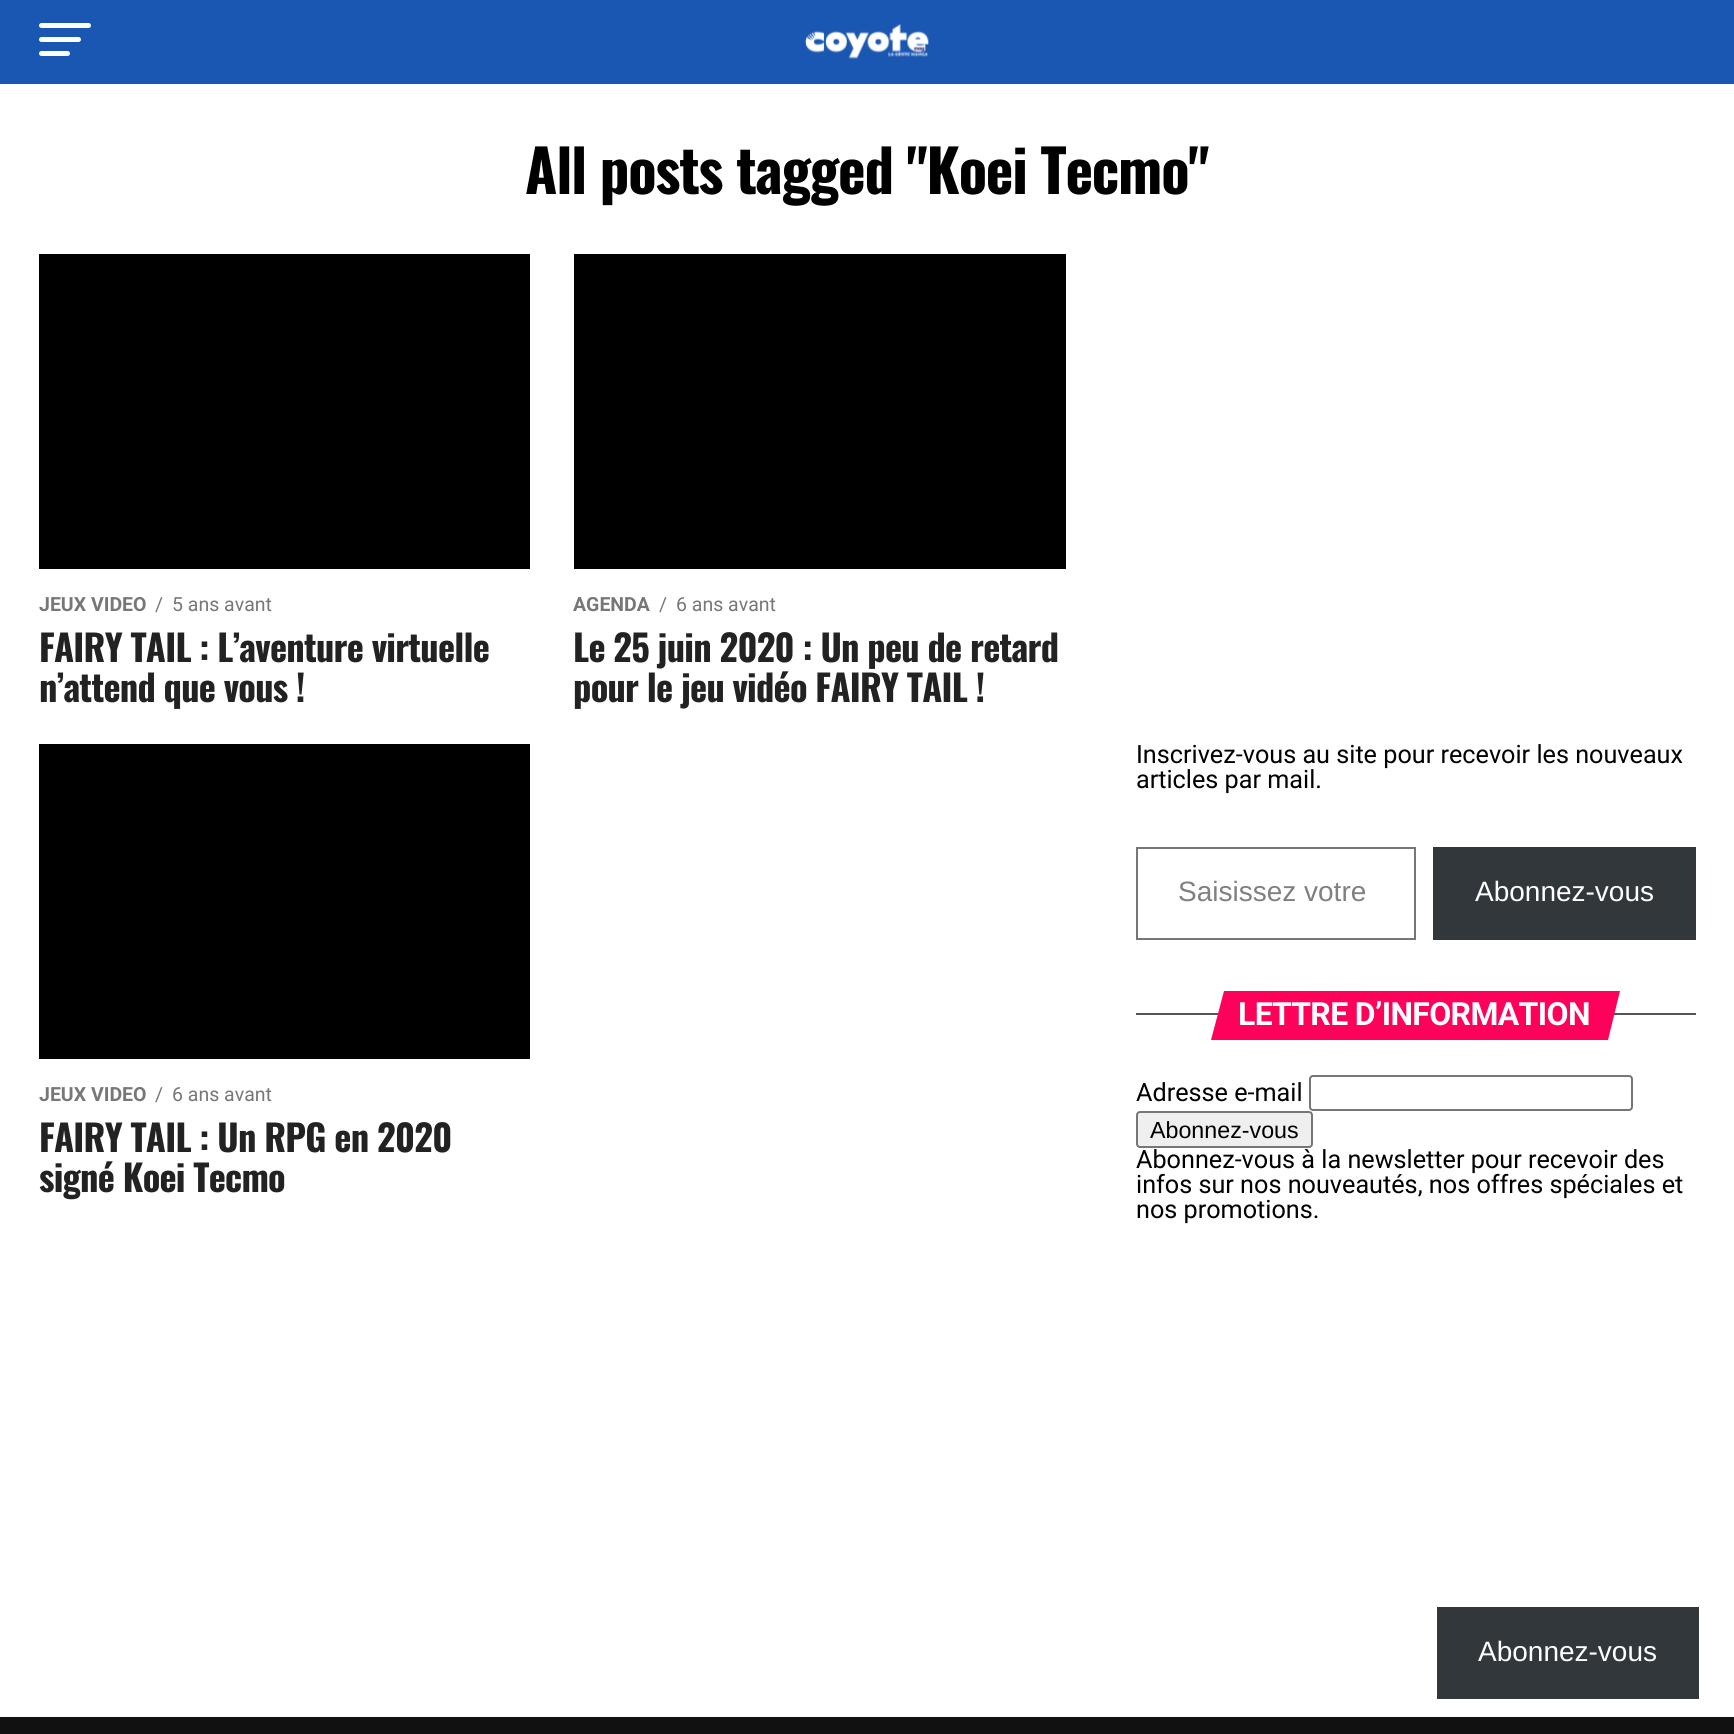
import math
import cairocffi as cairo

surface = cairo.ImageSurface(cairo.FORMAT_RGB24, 1734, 1734)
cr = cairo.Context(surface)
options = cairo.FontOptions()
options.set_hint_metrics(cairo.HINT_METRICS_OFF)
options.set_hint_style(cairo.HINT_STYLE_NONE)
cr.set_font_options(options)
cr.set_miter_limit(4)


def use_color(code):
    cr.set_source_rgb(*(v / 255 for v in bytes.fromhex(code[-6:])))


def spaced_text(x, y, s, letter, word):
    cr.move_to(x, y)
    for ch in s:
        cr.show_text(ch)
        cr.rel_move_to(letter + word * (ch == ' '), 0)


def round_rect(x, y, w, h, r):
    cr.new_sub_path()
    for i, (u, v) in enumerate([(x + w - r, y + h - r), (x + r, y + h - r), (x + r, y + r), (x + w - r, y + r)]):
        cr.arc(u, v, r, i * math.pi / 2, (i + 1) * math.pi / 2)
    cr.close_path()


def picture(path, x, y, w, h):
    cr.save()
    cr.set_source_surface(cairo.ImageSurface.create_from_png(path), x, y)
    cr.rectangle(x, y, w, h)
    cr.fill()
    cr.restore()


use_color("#ffffff")
cr.paint()
use_color("#1a57b2")
cr.rectangle(0, 0, 1734, 84)
cr.fill()
use_color("#ffffff")
round_rect(39, 23, 52, 5, 2.5)
cr.fill()
round_rect(39, 37, 42, 5, 2.5)
cr.fill()
round_rect(39, 51, 31, 5, 2.5)
cr.fill()
picture("img1.png", 805, 24, 124, 35)
cr.select_font_face("Oswald", cairo.FONT_SLANT_NORMAL, cairo.FONT_WEIGHT_BOLD)
cr.set_font_size(58.75)
use_color("#000000")
spaced_text(525, 194, "All posts tagged \"Koei Tecmo\"", -1.2, 0)
cr.rectangle(39, 254, 491, 315)
cr.fill()
cr.select_font_face("Roboto", cairo.FONT_SLANT_NORMAL, cairo.FONT_WEIGHT_BOLD)
cr.set_font_size(19.5)
use_color("#777777")
cr.move_to(39, 611)
cr.show_text("JEUX VIDEO")
cr.select_font_face("Roboto")
cr.move_to(155, 611)
cr.show_text("/")
cr.move_to(172, 611)
cr.show_text("5 ans avant")
cr.select_font_face("Oswald", cairo.FONT_SLANT_NORMAL, cairo.FONT_WEIGHT_BOLD)
cr.set_font_size(36.4)
use_color("#222222")
spaced_text(39, 662, "FAIRY TAIL : L’aventure virtuelle", -0.75, 0)
spaced_text(39, 702, "n’attend que vous !", -0.75, 0)
use_color("#000000")
cr.rectangle(574, 254, 492, 315)
cr.fill()
cr.select_font_face("Roboto", cairo.FONT_SLANT_NORMAL, cairo.FONT_WEIGHT_BOLD)
cr.set_font_size(19.5)
use_color("#777777")
cr.move_to(573, 611)
cr.show_text("AGENDA")
cr.select_font_face("Roboto")
cr.move_to(659, 611)
cr.show_text("/")
cr.move_to(676, 611)
cr.show_text("6 ans avant")
cr.select_font_face("Oswald", cairo.FONT_SLANT_NORMAL, cairo.FONT_WEIGHT_BOLD)
cr.set_font_size(36.4)
use_color("#222222")
spaced_text(573, 662, "Le 25 juin 2020 : Un peu de retard", -0.75, 0)
spaced_text(573, 702, "pour le jeu vidéo FAIRY TAIL !", -0.75, 0)
use_color("#000000")
cr.rectangle(39, 744, 491, 315)
cr.fill()
cr.select_font_face("Roboto", cairo.FONT_SLANT_NORMAL, cairo.FONT_WEIGHT_BOLD)
cr.set_font_size(19.5)
use_color("#777777")
cr.move_to(39, 1101)
cr.show_text("JEUX VIDEO")
cr.select_font_face("Roboto")
cr.move_to(155, 1101)
cr.show_text("/")
cr.move_to(172, 1101)
cr.show_text("6 ans avant")
cr.select_font_face("Oswald", cairo.FONT_SLANT_NORMAL, cairo.FONT_WEIGHT_BOLD)
cr.set_font_size(36.4)
use_color("#222222")
spaced_text(39, 1152, "FAIRY TAIL : Un RPG en 2020", -0.75, 0)
spaced_text(39, 1192, "signé Koei Tecmo", -0.75, 0)
cr.select_font_face("Roboto")
cr.set_font_size(25.2)
use_color("#000000")
cr.move_to(1136, 763)
cr.show_text("Inscrivez-vous au site pour recevoir les nouveaux")
cr.move_to(1136, 788)
cr.show_text("articles par mail.")
cr.rectangle(1137, 848, 278, 91)
use_color("#767676")
cr.stroke()
cr.select_font_face("Liberation Sans")
cr.set_font_size(28)
use_color("#808080")
cr.move_to(1178, 901)
cr.show_text("Saisissez votre")
use_color("#32373c")
cr.rectangle(1433, 847, 263, 93)
cr.fill()
use_color("#ffffff")
cr.move_to(1475, 901)
cr.show_text("Abonnez-vous")
use_color("#555555")
cr.rectangle(1136, 1013, 560, 2)
cr.fill()
use_color("#ff005b")
cr.new_path()
cr.move_to(1224, 991)
cr.line_to(1620, 991)
cr.line_to(1608, 1040)
cr.line_to(1211, 1040)
cr.close_path()
cr.fill()
cr.select_font_face("Roboto", cairo.FONT_SLANT_NORMAL, cairo.FONT_WEIGHT_BOLD)
cr.set_font_size(31.9)
use_color("#ffffff")
spaced_text(1238, 1025, "LETTRE D’INFORMATION", -0.6, 0)
cr.select_font_face("Roboto")
cr.set_font_size(25.2)
use_color("#000000")
cr.move_to(1136, 1101)
cr.show_text("Adresse e-mail")
round_rect(1310, 1076, 322, 34, 3)
use_color("#767676")
cr.stroke()
use_color("#efefef")
round_rect(1137, 1112, 175, 35, 3)
cr.fill_preserve()
use_color("#767676")
cr.stroke()
cr.select_font_face("Liberation Sans")
cr.set_font_size(23.25)
use_color("#000000")
cr.move_to(1150, 1138)
cr.show_text("Abonnez-vous")
cr.select_font_face("Roboto")
cr.set_font_size(25.2)
cr.move_to(1136, 1168)
cr.show_text("Abonnez-vous à la newsletter pour recevoir des")
cr.move_to(1136, 1193)
cr.show_text("infos sur nos nouveautés, nos offres spéciales et")
cr.move_to(1136, 1218)
cr.show_text("nos promotions.")
use_color("#111111")
cr.rectangle(0, 1717, 1734, 17)
cr.fill()
use_color("#32373c")
cr.rectangle(1437, 1607, 262, 92)
cr.fill()
cr.select_font_face("Liberation Sans")
cr.set_font_size(28)
use_color("#ffffff")
cr.move_to(1478, 1661)
cr.show_text("Abonnez-vous")
surface.write_to_png("result.png")
